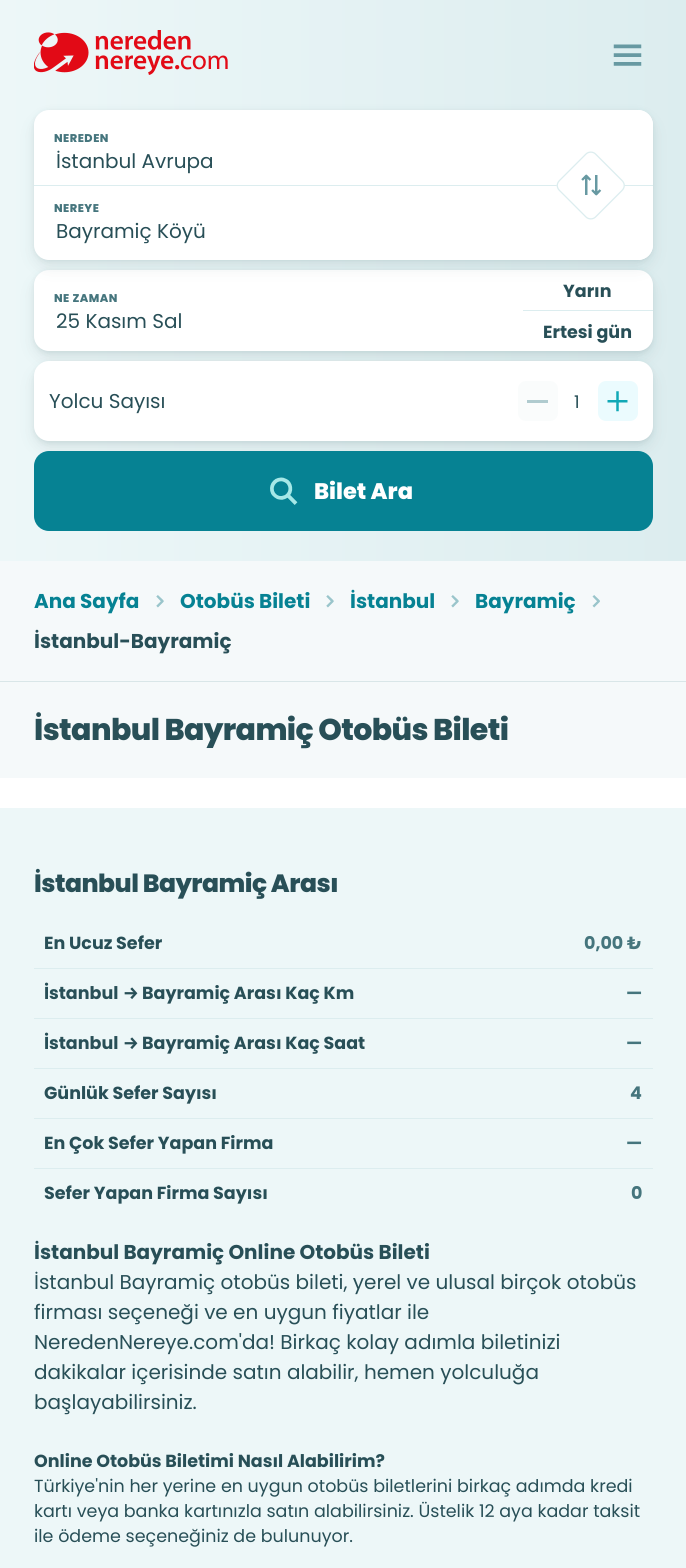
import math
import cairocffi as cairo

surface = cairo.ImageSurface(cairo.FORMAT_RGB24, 686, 1568)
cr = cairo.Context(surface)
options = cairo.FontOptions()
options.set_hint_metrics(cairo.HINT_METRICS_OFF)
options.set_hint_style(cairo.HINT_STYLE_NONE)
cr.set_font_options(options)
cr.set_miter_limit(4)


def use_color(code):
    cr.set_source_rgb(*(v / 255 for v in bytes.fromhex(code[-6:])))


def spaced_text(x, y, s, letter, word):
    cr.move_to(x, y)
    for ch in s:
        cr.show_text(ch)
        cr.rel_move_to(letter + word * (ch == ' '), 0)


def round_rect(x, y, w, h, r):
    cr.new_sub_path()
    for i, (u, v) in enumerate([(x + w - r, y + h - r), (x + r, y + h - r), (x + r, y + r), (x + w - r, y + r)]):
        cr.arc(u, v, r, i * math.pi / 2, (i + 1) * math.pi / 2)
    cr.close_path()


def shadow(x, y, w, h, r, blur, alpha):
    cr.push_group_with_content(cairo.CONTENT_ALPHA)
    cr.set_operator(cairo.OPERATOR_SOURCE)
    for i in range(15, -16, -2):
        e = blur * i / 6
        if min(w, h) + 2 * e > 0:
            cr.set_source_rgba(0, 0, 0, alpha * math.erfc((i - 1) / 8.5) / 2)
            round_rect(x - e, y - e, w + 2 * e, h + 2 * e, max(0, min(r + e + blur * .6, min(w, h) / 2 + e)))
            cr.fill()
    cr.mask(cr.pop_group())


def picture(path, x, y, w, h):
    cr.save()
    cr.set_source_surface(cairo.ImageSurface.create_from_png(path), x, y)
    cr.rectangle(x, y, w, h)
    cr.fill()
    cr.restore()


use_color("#ffffff")
cr.paint()
gradient = cairo.LinearGradient(0, 55, 686, 55)
gradient.add_color_stop_rgba(0, 0.929, 0.969, 0.973, 1)
gradient.add_color_stop_rgba(1, 0.863, 0.929, 0.937, 1)
cr.set_source(gradient)
cr.rectangle(0, 0, 686, 110)
cr.fill()
picture("img1.png", 34, 30, 194, 45)
picture("img2.png", 613, 44, 29, 22)
gradient = cairo.LinearGradient(0, 336, 686, 336)
gradient.add_color_stop_rgba(0, 0.929, 0.969, 0.973, 1)
gradient.add_color_stop_rgba(1, 0.863, 0.929, 0.937, 1)
cr.set_source(gradient)
cr.rectangle(0, 110, 686, 451)
cr.fill()
use_color("#284f57")
shadow(34, 278, 619, 81, 15, 7.5, 0.1)
shadow(34, 271, 619, 82, 15, 2.5, 0.1)
use_color("#ffffff")
round_rect(34, 270, 619, 81, 15)
cr.fill()
use_color("#284f57")
shadow(34, 118, 619, 150, 15, 7.5, 0.1)
shadow(34, 111, 619, 150, 15, 2.5, 0.1)
use_color("#ffffff")
round_rect(34, 110, 619, 150, 15)
cr.fill()
cr.select_font_face("Poppins ExtraBold")
cr.set_font_size(11.25)
use_color("#45757d")
spaced_text(54, 142, "NEREDEN", 0.5, 0)
cr.select_font_face("Poppins")
cr.set_font_size(20)
use_color("#284f57")
cr.move_to(56, 168)
cr.show_text("İstanbul Avrupa")
use_color("#ffffff")
round_rect(533, 110, 120, 150, 15)
cr.fill()
use_color("#dcedef")
cr.rectangle(34, 185, 619, 1)
cr.fill()
use_color("#ffffff")
cr.new_path()
cr.move_to(596, 154)
cr.line_to(623, 180)
cr.curve_to(625, 183, 625, 188, 623, 191)
cr.line_to(596, 217)
cr.curve_to(593, 220, 588, 220, 585, 217)
cr.line_to(559, 191)
cr.curve_to(556, 188, 556, 183, 559, 180)
cr.line_to(585, 154)
cr.curve_to(588, 151, 593, 151, 596, 154)
cr.close_path()
cr.fill()
cr.new_path()
cr.move_to(595.5, 154)
cr.line_to(622, 180.5)
cr.curve_to(625, 183.5, 625, 187.5, 622, 190.5)
cr.line_to(595.5, 217)
cr.curve_to(593, 219.5, 588.5, 219.5, 586, 217)
cr.line_to(559.5, 190.5)
cr.curve_to(556.5, 187.5, 556.5, 183.5, 559.5, 180.5)
cr.line_to(586, 154)
cr.curve_to(588.5, 151.5, 593, 151.5, 595.5, 154)
cr.close_path()
use_color("#dcedef")
cr.set_line_width(1.3)
cr.stroke()
picture("img3.png", 581, 174, 21, 22)
cr.select_font_face("Poppins ExtraBold")
cr.set_font_size(11.25)
use_color("#45757d")
spaced_text(54, 212, "NEREYE", 0.5, 0)
cr.select_font_face("Poppins")
cr.set_font_size(20)
use_color("#284f57")
cr.move_to(56, 238)
cr.show_text("Bayramiç Köyü")
cr.select_font_face("Poppins ExtraBold")
cr.set_font_size(11.25)
use_color("#45757d")
spaced_text(54, 302, "NE ZAMAN", 0.5, 0)
cr.select_font_face("Poppins")
cr.set_font_size(20)
use_color("#284f57")
cr.move_to(56, 328)
cr.show_text("25 Kasım Sal")
cr.select_font_face("Poppins", cairo.FONT_SLANT_NORMAL, cairo.FONT_WEIGHT_BOLD)
cr.set_font_size(17.5)
cr.move_to(563, 297)
cr.show_text("Yarın")
use_color("#dcedef")
cr.rectangle(523, 310, 130, 1)
cr.fill()
use_color("#284f57")
cr.move_to(543, 338)
cr.show_text("Ertesi gün")
use_color("#284f57")
shadow(34, 369, 619, 80, 15, 7.5, 0.1)
shadow(34, 363, 619, 80, 15, 2.5, 0.1)
use_color("#ffffff")
round_rect(34, 361, 619, 80, 15)
cr.fill()
cr.select_font_face("Poppins")
cr.set_font_size(20)
use_color("#284f57")
cr.move_to(49, 408)
cr.show_text("Yolcu Sayısı")
use_color("#fafcfc")
round_rect(518, 381, 40, 40, 8)
cr.fill()
use_color("#b0cbcf")
cr.rectangle(527, 400, 21, 3)
cr.fill()
cr.set_font_size(17.5)
use_color("#284f57")
cr.move_to(574, 408)
cr.show_text("1")
use_color("#ebfbfe")
round_rect(598, 381, 40, 40, 8)
cr.fill()
picture("img4.png", 607, 391, 21, 21)
use_color("#068293")
round_rect(34, 451, 619, 80, 15)
cr.fill()
picture("img5.png", 270, 477, 28, 28)
cr.select_font_face("Poppins ExtraBold")
cr.set_font_size(22.5)
use_color("#ffffff")
cr.move_to(314, 499)
cr.show_text("Bilet Ara")
use_color("#f5f9fa")
cr.rectangle(0, 561, 686, 217)
cr.fill()
use_color("#d9e6e8")
cr.rectangle(0, 681, 686, 1)
cr.fill()
cr.select_font_face("Poppins", cairo.FONT_SLANT_NORMAL, cairo.FONT_WEIGHT_BOLD)
cr.set_font_size(20)
use_color("#068293")
cr.move_to(34, 608)
cr.show_text("Ana Sayfa")
picture("img6.png", 156, 595, 8, 13)
cr.move_to(180, 608)
cr.show_text("Otobüs Bileti")
picture("img6.png", 326, 595, 8, 13)
cr.move_to(350, 608)
cr.show_text("İstanbul")
picture("img6.png", 451, 595, 8, 13)
cr.move_to(475, 608)
cr.show_text("Bayramiç")
picture("img7.png", 592, 595, 8, 13)
use_color("#284f57")
cr.move_to(34, 648)
cr.show_text("İstanbul-Bayramiç")
cr.select_font_face("Poppins ExtraBold")
cr.set_font_size(30)
spaced_text(34, 740, "İstanbul Bayramiç Otobüs Bileti", -0.6, 0)
use_color("#edf7f8")
cr.rectangle(0, 808, 686, 760)
cr.fill()
cr.set_font_size(25)
use_color("#284f57")
spaced_text(34, 892, "İstanbul Bayramiç Arası", -0.5, 0)
cr.select_font_face("Poppins", cairo.FONT_SLANT_NORMAL, cairo.FONT_WEIGHT_BOLD)
cr.set_font_size(17.5)
cr.move_to(44, 949)
cr.show_text("En Ucuz Sefer")
use_color("#45757d")
cr.move_to(584, 949)
cr.show_text("0,00 ₺")
use_color("#dcedef")
cr.rectangle(34, 968, 619, 1)
cr.fill()
cr.select_font_face("Fira Sans", cairo.FONT_SLANT_NORMAL, cairo.FONT_WEIGHT_BOLD)
use_color("#284f57")
cr.move_to(44, 999)
cr.show_text("İ")
cr.select_font_face("Poppins", cairo.FONT_SLANT_NORMAL, cairo.FONT_WEIGHT_BOLD)
cr.move_to(49, 999)
cr.show_text("stanbul")
cr.select_font_face("Fira Sans", cairo.FONT_SLANT_NORMAL, cairo.FONT_WEIGHT_BOLD)
cr.move_to(123, 999)
cr.show_text("→")
cr.select_font_face("Poppins", cairo.FONT_SLANT_NORMAL, cairo.FONT_WEIGHT_BOLD)
cr.move_to(142, 999)
cr.show_text("Bayramiç Arası Kaç Km")
use_color("#45757d")
cr.move_to(626, 999)
cr.show_text("—")
use_color("#dcedef")
cr.rectangle(34, 1018, 619, 1)
cr.fill()
cr.select_font_face("Fira Sans", cairo.FONT_SLANT_NORMAL, cairo.FONT_WEIGHT_BOLD)
use_color("#284f57")
cr.move_to(44, 1049)
cr.show_text("İ")
cr.select_font_face("Poppins", cairo.FONT_SLANT_NORMAL, cairo.FONT_WEIGHT_BOLD)
cr.move_to(49, 1049)
cr.show_text("stanbul")
cr.select_font_face("Fira Sans", cairo.FONT_SLANT_NORMAL, cairo.FONT_WEIGHT_BOLD)
cr.move_to(123, 1049)
cr.show_text("→")
cr.select_font_face("Poppins", cairo.FONT_SLANT_NORMAL, cairo.FONT_WEIGHT_BOLD)
cr.move_to(142, 1049)
cr.show_text("Bayramiç Arası Kaç Saat")
use_color("#45757d")
cr.move_to(626, 1049)
cr.show_text("—")
use_color("#dcedef")
cr.rectangle(34, 1068, 619, 1)
cr.fill()
use_color("#284f57")
cr.move_to(44, 1099)
cr.show_text("Günlük Sefer Sayısı")
use_color("#45757d")
cr.move_to(630, 1099)
cr.show_text("4")
use_color("#dcedef")
cr.rectangle(34, 1118, 619, 1)
cr.fill()
use_color("#284f57")
cr.move_to(44, 1149)
cr.show_text("En Çok Sefer Yapan Firma")
use_color("#45757d")
cr.move_to(626, 1149)
cr.show_text("—")
use_color("#dcedef")
cr.rectangle(34, 1168, 619, 1)
cr.fill()
use_color("#284f57")
cr.move_to(44, 1199)
cr.show_text("Sefer Yapan Firma Sayısı")
use_color("#45757d")
cr.move_to(631, 1199)
cr.show_text("0")
cr.set_font_size(20)
use_color("#284f57")
cr.move_to(34, 1259)
cr.show_text("İstanbul Bayramiç Online Otobüs Bileti")
cr.select_font_face("Poppins")
cr.move_to(34, 1289)
cr.show_text("İstanbul Bayramiç otobüs bileti, yerel ve ulusal birçok otobüs")
cr.move_to(34, 1319)
cr.show_text("firması seçeneği ve en uygun fiyatlar ile")
cr.move_to(34, 1349)
cr.show_text("NeredenNereye.com'da! Birkaç kolay adımla biletinizi")
cr.move_to(34, 1379)
cr.show_text("dakikalar içerisinde satın alabilir, hemen yolculuğa")
cr.move_to(34, 1409)
cr.show_text("başlayabilirsiniz.")
cr.select_font_face("Poppins", cairo.FONT_SLANT_NORMAL, cairo.FONT_WEIGHT_BOLD)
cr.set_font_size(17.5)
cr.move_to(34, 1467)
cr.show_text("Online Otobüs Biletimi Nasıl Alabilirim?")
cr.select_font_face("Poppins")
cr.move_to(34, 1492)
cr.show_text("Türkiye'nin her yerine en uygun otobüs biletlerini birkaç adımda kredi")
cr.move_to(34, 1517)
cr.show_text("kartı veya banka kartınızla satın alabilirsiniz. Üstelik 12 aya kadar taksit")
cr.move_to(34, 1542)
cr.show_text("ile ödeme seçeneğiniz de bulunuyor.")
surface.write_to_png("result.png")
